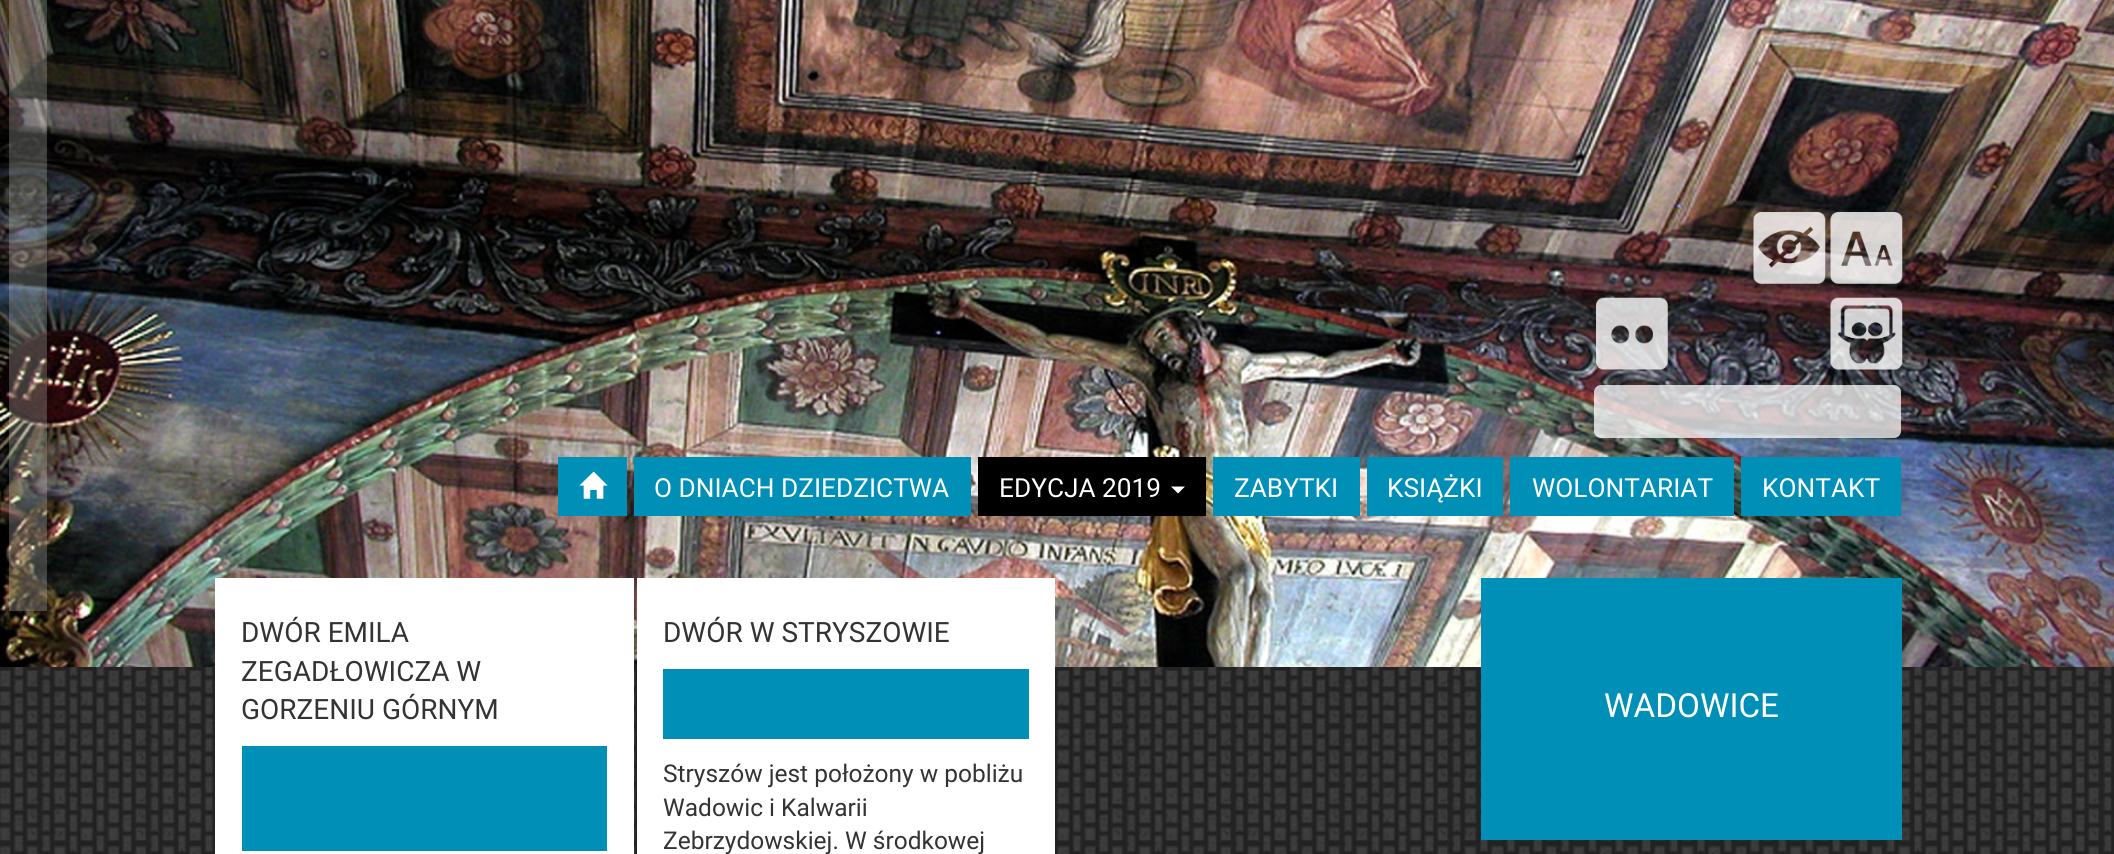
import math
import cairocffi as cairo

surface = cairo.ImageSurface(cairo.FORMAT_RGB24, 2114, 854)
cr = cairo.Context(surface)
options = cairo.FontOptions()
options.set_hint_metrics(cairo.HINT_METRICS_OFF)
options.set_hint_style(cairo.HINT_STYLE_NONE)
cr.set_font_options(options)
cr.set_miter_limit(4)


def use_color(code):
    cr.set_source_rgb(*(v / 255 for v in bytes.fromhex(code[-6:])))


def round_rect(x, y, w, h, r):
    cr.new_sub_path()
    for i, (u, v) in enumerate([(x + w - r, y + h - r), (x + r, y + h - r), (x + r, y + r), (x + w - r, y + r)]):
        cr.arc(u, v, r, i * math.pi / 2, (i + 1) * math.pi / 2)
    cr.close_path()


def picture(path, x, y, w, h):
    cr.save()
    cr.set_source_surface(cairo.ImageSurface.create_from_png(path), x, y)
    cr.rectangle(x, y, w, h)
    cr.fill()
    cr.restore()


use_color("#ffffff")
cr.paint()
picture("img1.png", 0, 667, 2114, 187)
picture("img2.png", 0, 0, 2114, 667)
cr.set_source_rgba(0.859, 0.863, 0.839, 0.25)
cr.rectangle(9, 0, 38, 611)
cr.fill()
picture("img3.png", 1753, 212, 73, 72)
picture("img4.png", 1830, 212, 73, 72)
picture("img5.png", 1596, 297, 72, 73)
picture("img6.png", 1830, 297, 73, 73)
cr.set_source_rgba(1, 1, 1, 0.75)
round_rect(1594, 385, 307, 53, 7)
cr.fill()
use_color("#0090b7")
cr.rectangle(558, 457, 69, 59)
cr.fill()
picture("img7.png", 579, 471, 29, 28)
cr.rectangle(634, 457, 337, 59)
cr.fill()
cr.select_font_face("Roboto")
cr.set_font_size(26.25)
use_color("#ffffff")
cr.move_to(654, 497)
cr.show_text("O DNIACH DZIEDZICTWA")
use_color("#000000")
cr.rectangle(978, 457, 228, 59)
cr.fill()
use_color("#ffffff")
cr.move_to(999, 497)
cr.show_text("EDYCJA 2019")
cr.new_path()
cr.move_to(1171, 486.5)
cr.line_to(1185, 486.5)
cr.line_to(1178, 493.5)
cr.close_path()
cr.fill()
use_color("#0090b7")
cr.rectangle(1213, 457, 147, 59)
cr.fill()
use_color("#ffffff")
cr.move_to(1234, 497)
cr.show_text("ZABYTKI")
use_color("#0090b7")
cr.rectangle(1367, 457, 136, 59)
cr.fill()
use_color("#ffffff")
cr.move_to(1387, 497)
cr.show_text("KSIĄŻKI")
use_color("#0090b7")
cr.rectangle(1510, 457, 224, 59)
cr.fill()
use_color("#ffffff")
cr.move_to(1532, 497)
cr.show_text("WOLONTARIAT")
use_color("#0090b7")
cr.rectangle(1741, 457, 160, 59)
cr.fill()
use_color("#ffffff")
cr.move_to(1762, 497)
cr.show_text("KONTAKT")
cr.rectangle(215, 578, 419, 276)
cr.fill()
cr.set_font_size(28)
use_color("#333333")
cr.move_to(241, 642)
cr.show_text("DWÓR EMILA")
cr.move_to(241, 681)
cr.show_text("ZEGADŁOWICZA W")
cr.move_to(241, 719)
cr.show_text("GORZENIU GÓRNYM")
use_color("#0090b7")
cr.rectangle(242, 746, 365, 105)
cr.fill()
use_color("#ffffff")
cr.rectangle(637, 578, 418, 276)
cr.fill()
use_color("#333333")
cr.move_to(663, 642)
cr.show_text("DWÓR W STRYSZOWIE")
use_color("#0090b7")
cr.rectangle(663, 669, 366, 70)
cr.fill()
cr.set_font_size(24.5)
use_color("#333333")
cr.move_to(663, 782)
cr.show_text("Stryszów jest położony w pobliżu")
cr.move_to(663, 816)
cr.show_text("Wadowic i Kalwarii")
cr.move_to(663, 849)
cr.show_text("Zebrzydowskiej. W środkowej")
use_color("#0090b7")
cr.rectangle(1481, 578, 421, 262)
cr.fill()
cr.select_font_face("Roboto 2")
cr.set_font_size(33.25)
use_color("#ffffff")
cr.move_to(1604, 717)
cr.show_text("WADOWICE")
surface.write_to_png("result.png")
